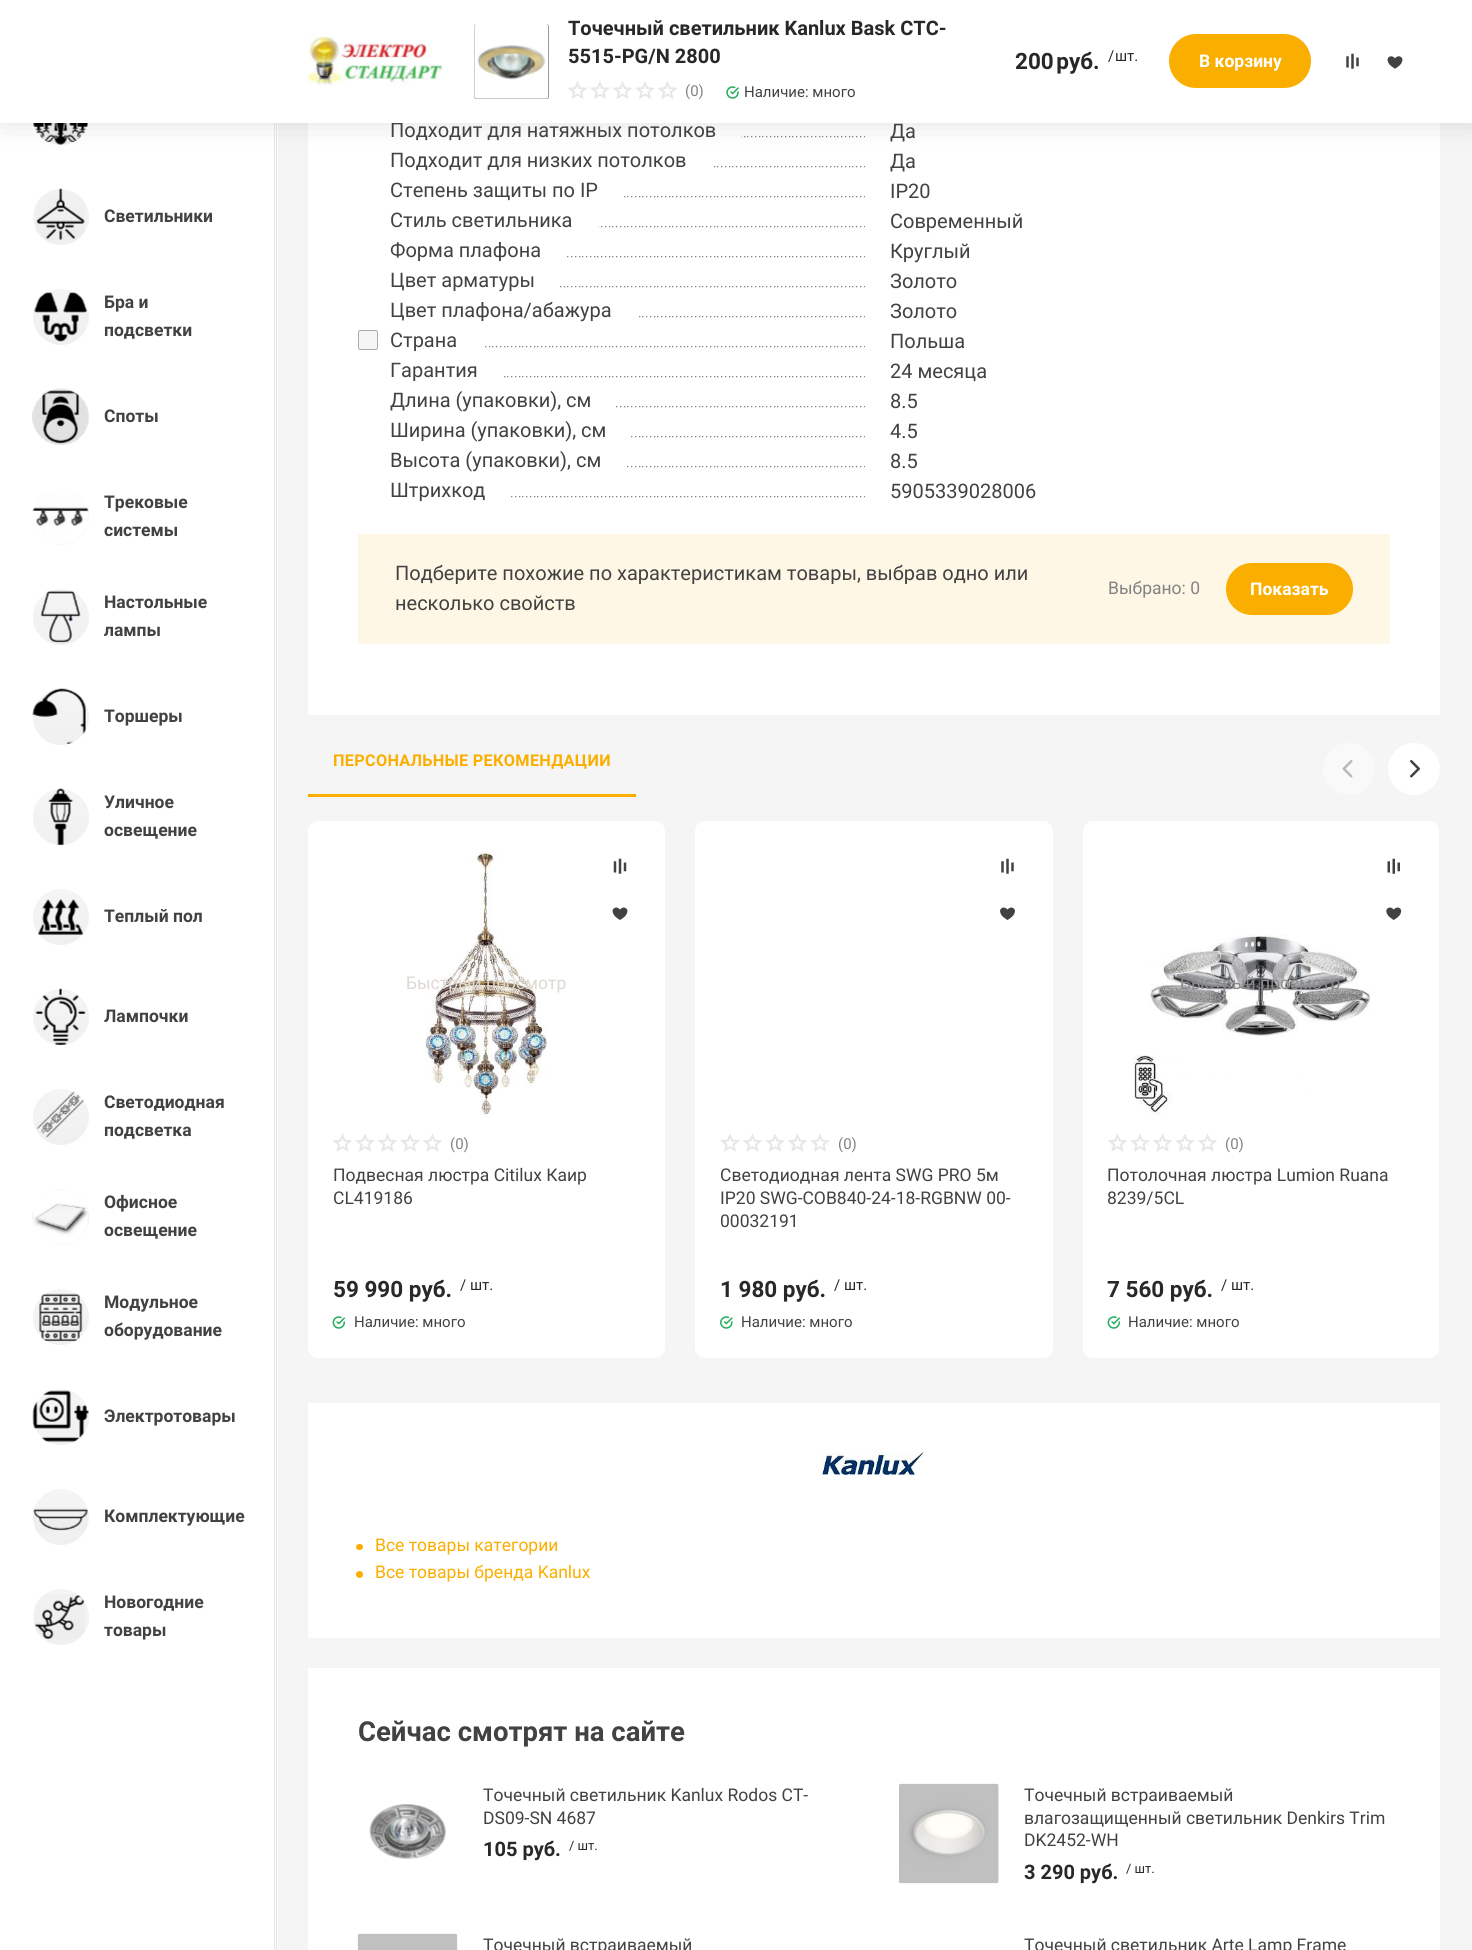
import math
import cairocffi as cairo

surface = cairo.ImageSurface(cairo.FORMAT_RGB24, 1472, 1950)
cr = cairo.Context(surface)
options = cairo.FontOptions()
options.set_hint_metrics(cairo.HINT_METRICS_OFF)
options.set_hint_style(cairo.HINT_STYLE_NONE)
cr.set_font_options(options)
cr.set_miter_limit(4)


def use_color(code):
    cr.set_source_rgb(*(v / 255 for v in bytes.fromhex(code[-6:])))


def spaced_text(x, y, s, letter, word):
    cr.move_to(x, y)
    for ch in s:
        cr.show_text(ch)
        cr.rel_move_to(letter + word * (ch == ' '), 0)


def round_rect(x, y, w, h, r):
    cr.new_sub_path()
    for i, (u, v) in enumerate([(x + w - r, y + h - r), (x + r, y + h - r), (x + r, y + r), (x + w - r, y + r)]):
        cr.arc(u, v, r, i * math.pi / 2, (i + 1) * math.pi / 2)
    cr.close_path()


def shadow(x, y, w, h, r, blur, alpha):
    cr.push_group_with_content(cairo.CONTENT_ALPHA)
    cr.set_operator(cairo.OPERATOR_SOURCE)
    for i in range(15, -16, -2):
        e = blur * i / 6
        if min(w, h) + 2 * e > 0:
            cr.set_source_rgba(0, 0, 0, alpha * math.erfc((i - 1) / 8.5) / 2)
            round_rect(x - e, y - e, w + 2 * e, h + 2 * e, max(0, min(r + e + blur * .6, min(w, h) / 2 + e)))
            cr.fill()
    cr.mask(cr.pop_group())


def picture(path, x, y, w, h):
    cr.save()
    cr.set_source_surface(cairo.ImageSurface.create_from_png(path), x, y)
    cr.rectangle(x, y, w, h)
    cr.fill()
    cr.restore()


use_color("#f5f5f5")
cr.paint()
use_color("#ffffff")
cr.rectangle(0, 123, 278, 1827)
cr.fill()
use_color("#e7e7e7")
cr.rectangle(276, 123, 1, 1827)
cr.fill()
gradient = cairo.LinearGradient(61, 89, 61, 145)
gradient.add_color_stop_rgba(0, 0.961, 0.961, 0.961, 1)
gradient.add_color_stop_rgba(1, 0.941, 0.941, 0.941, 1)
cr.set_source(gradient)
cr.arc(61, 117, 28, 0, 2 * math.pi)
cr.fill()
picture("img1.png", 33, 123, 56, 22)
gradient = cairo.LinearGradient(61, 189, 61, 245)
gradient.add_color_stop_rgba(0, 0.961, 0.961, 0.961, 1)
gradient.add_color_stop_rgba(1, 0.941, 0.941, 0.941, 1)
cr.set_source(gradient)
cr.arc(61, 217, 28, 0, 2 * math.pi)
cr.fill()
picture("img2.png", 36, 188, 49, 52)
cr.select_font_face("Roboto", cairo.FONT_SLANT_NORMAL, cairo.FONT_WEIGHT_BOLD)
cr.set_font_size(17.5)
use_color("#424242")
cr.move_to(104, 222)
cr.show_text("Светильники")
gradient = cairo.LinearGradient(61, 289, 61, 345)
gradient.add_color_stop_rgba(0, 0.961, 0.961, 0.961, 1)
gradient.add_color_stop_rgba(1, 0.941, 0.941, 0.941, 1)
cr.set_source(gradient)
cr.new_path()
cr.arc(61, 317, 28, 0, 2 * math.pi)
cr.fill()
picture("img3.png", 34, 292, 54, 50)
use_color("#424242")
cr.move_to(104, 308)
cr.show_text("Бра и")
cr.move_to(104, 336)
cr.show_text("подсветки")
gradient = cairo.LinearGradient(61, 389, 61, 445)
gradient.add_color_stop_rgba(0, 0.961, 0.961, 0.961, 1)
gradient.add_color_stop_rgba(1, 0.941, 0.941, 0.941, 1)
cr.set_source(gradient)
cr.new_path()
cr.arc(61, 417, 28, 0, 2 * math.pi)
cr.fill()
picture("img4.png", 32, 388, 57, 57)
use_color("#424242")
cr.move_to(104, 422)
cr.show_text("Споты")
gradient = cairo.LinearGradient(61, 489, 61, 545)
gradient.add_color_stop_rgba(0, 0.961, 0.961, 0.961, 1)
gradient.add_color_stop_rgba(1, 0.941, 0.941, 0.941, 1)
cr.set_source(gradient)
cr.new_path()
cr.arc(61, 517, 28, 0, 2 * math.pi)
cr.fill()
picture("img5.png", 32, 489, 57, 56)
use_color("#424242")
cr.move_to(104, 508)
cr.show_text("Трековые")
cr.move_to(104, 536)
cr.show_text("системы")
gradient = cairo.LinearGradient(61, 589, 61, 645)
gradient.add_color_stop_rgba(0, 0.961, 0.961, 0.961, 1)
gradient.add_color_stop_rgba(1, 0.941, 0.941, 0.941, 1)
cr.set_source(gradient)
cr.new_path()
cr.arc(61, 617, 28, 0, 2 * math.pi)
cr.fill()
picture("img6.png", 40, 590, 41, 53)
use_color("#424242")
cr.move_to(104, 608)
cr.show_text("Настольные")
cr.move_to(104, 636)
cr.show_text("лампы")
gradient = cairo.LinearGradient(61, 689, 61, 745)
gradient.add_color_stop_rgba(0, 0.961, 0.961, 0.961, 1)
gradient.add_color_stop_rgba(1, 0.941, 0.941, 0.941, 1)
cr.set_source(gradient)
cr.new_path()
cr.arc(61, 717, 28, 0, 2 * math.pi)
cr.fill()
picture("img7.png", 32, 688, 54, 56)
use_color("#424242")
cr.move_to(104, 722)
cr.show_text("Торшеры")
gradient = cairo.LinearGradient(61, 789, 61, 845)
gradient.add_color_stop_rgba(0, 0.961, 0.961, 0.961, 1)
gradient.add_color_stop_rgba(1, 0.941, 0.941, 0.941, 1)
cr.set_source(gradient)
cr.new_path()
cr.arc(61, 817, 28, 0, 2 * math.pi)
cr.fill()
picture("img8.png", 48, 788, 25, 58)
use_color("#424242")
cr.move_to(104, 808)
cr.show_text("Уличное")
cr.move_to(104, 836)
cr.show_text("освещение")
gradient = cairo.LinearGradient(61, 889, 61, 945)
gradient.add_color_stop_rgba(0, 0.961, 0.961, 0.961, 1)
gradient.add_color_stop_rgba(1, 0.941, 0.941, 0.941, 1)
cr.set_source(gradient)
cr.new_path()
cr.arc(61, 917, 28, 0, 2 * math.pi)
cr.fill()
picture("img9.png", 38, 899, 46, 36)
use_color("#424242")
cr.move_to(104, 922)
cr.show_text("Теплый пол")
gradient = cairo.LinearGradient(61, 989, 61, 1045)
gradient.add_color_stop_rgba(0, 0.961, 0.961, 0.961, 1)
gradient.add_color_stop_rgba(1, 0.941, 0.941, 0.941, 1)
cr.set_source(gradient)
cr.new_path()
cr.arc(61, 1017, 28, 0, 2 * math.pi)
cr.fill()
picture("img10.png", 35, 988, 51, 58)
use_color("#424242")
cr.move_to(104, 1022)
cr.show_text("Лампочки")
gradient = cairo.LinearGradient(61, 1089, 61, 1145)
gradient.add_color_stop_rgba(0, 0.961, 0.961, 0.961, 1)
gradient.add_color_stop_rgba(1, 0.941, 0.941, 0.941, 1)
cr.set_source(gradient)
cr.new_path()
cr.arc(61, 1117, 28, 0, 2 * math.pi)
cr.fill()
picture("img11.png", 37, 1091, 47, 47)
use_color("#424242")
cr.move_to(104, 1108)
cr.show_text("Светодиодная")
cr.move_to(104, 1136)
cr.show_text("подсветка")
gradient = cairo.LinearGradient(61, 1189, 61, 1245)
gradient.add_color_stop_rgba(0, 0.961, 0.961, 0.961, 1)
gradient.add_color_stop_rgba(1, 0.941, 0.941, 0.941, 1)
cr.set_source(gradient)
cr.new_path()
cr.arc(61, 1217, 28, 0, 2 * math.pi)
cr.fill()
picture("img12.png", 32, 1189, 56, 56)
use_color("#424242")
cr.move_to(104, 1208)
cr.show_text("Офисное")
cr.move_to(104, 1236)
cr.show_text("освещение")
gradient = cairo.LinearGradient(61, 1289, 61, 1345)
gradient.add_color_stop_rgba(0, 0.961, 0.961, 0.961, 1)
gradient.add_color_stop_rgba(1, 0.941, 0.941, 0.941, 1)
cr.set_source(gradient)
cr.new_path()
cr.arc(61, 1317, 28, 0, 2 * math.pi)
cr.fill()
picture("img13.png", 39, 1293, 44, 49)
use_color("#424242")
cr.move_to(104, 1308)
cr.show_text("Модульное")
cr.move_to(104, 1336)
cr.show_text("оборудование")
gradient = cairo.LinearGradient(61, 1389, 61, 1445)
gradient.add_color_stop_rgba(0, 0.961, 0.961, 0.961, 1)
gradient.add_color_stop_rgba(1, 0.941, 0.941, 0.941, 1)
cr.set_source(gradient)
cr.new_path()
cr.arc(61, 1417, 28, 0, 2 * math.pi)
cr.fill()
picture("img14.png", 32, 1390, 57, 52)
use_color("#424242")
cr.move_to(104, 1422)
cr.show_text("Электротовары")
gradient = cairo.LinearGradient(61, 1489, 61, 1545)
gradient.add_color_stop_rgba(0, 0.961, 0.961, 0.961, 1)
gradient.add_color_stop_rgba(1, 0.941, 0.941, 0.941, 1)
cr.set_source(gradient)
cr.new_path()
cr.arc(61, 1517, 28, 0, 2 * math.pi)
cr.fill()
picture("img15.png", 33, 1508, 55, 23)
use_color("#424242")
cr.move_to(104, 1522)
cr.show_text("Комплектующие")
gradient = cairo.LinearGradient(61, 1589, 61, 1645)
gradient.add_color_stop_rgba(0, 0.961, 0.961, 0.961, 1)
gradient.add_color_stop_rgba(1, 0.941, 0.941, 0.941, 1)
cr.set_source(gradient)
cr.new_path()
cr.arc(61, 1617, 28, 0, 2 * math.pi)
cr.fill()
picture("img16.png", 35, 1594, 50, 45)
use_color("#424242")
cr.move_to(104, 1608)
cr.show_text("Новогодние")
cr.move_to(104, 1636)
cr.show_text("товары")
use_color("#e7e7e7")
cr.rectangle(274, 123, 1, 1827)
cr.fill()
use_color("#ffffff")
cr.rectangle(308, 123, 1132, 592)
cr.fill()
picture("img24.png", 741, 136, 124, 2)
picture("img25.png", 714, 166, 151, 2)
use_color("#000000")
shadow(0, 0, 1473, 123, 0, 15, 0.12)
cr.select_font_face("Roboto")
cr.set_font_size(20)
use_color("#424242")
cr.move_to(390, 137)
cr.show_text("Подходит для натяжных потолков")
use_color("#ffffff")
cr.rectangle(0, 0, 1472, 123)
cr.fill()
picture("img17.png", 307, 36, 136, 50)
use_color("#282828")
round_rect(474, 24, 75, 75, 2.5)
cr.fill()
picture("img18.png", 474, 24, 75, 75)
cr.select_font_face("Roboto", cairo.FONT_SLANT_NORMAL, cairo.FONT_WEIGHT_BOLD)
cr.move_to(568, 35)
cr.show_text("Точечный светильник Kanlux Bask CTC-")
cr.move_to(568, 63)
cr.show_text("5515-PG/N 2800")
picture("img19.png", 568, 81, 19, 18)
picture("img20.png", 590, 81, 20, 18)
picture("img19.png", 613, 81, 19, 18)
picture("img20.png", 635, 81, 20, 18)
picture("img19.png", 658, 81, 19, 18)
cr.select_font_face("Roboto")
cr.set_font_size(15)
use_color("#828282")
cr.move_to(685, 96)
cr.show_text("(0)")
picture("img21.png", 726, 86, 13, 13)
use_color("#424242")
cr.move_to(744, 97)
cr.show_text("Наличие: много")
cr.select_font_face("Roboto", cairo.FONT_SLANT_NORMAL, cairo.FONT_WEIGHT_BOLD)
cr.set_font_size(22.5)
use_color("#282828")
spaced_text(1015, 69, "200 руб.", 0, -3)
cr.select_font_face("Roboto")
cr.set_font_size(15)
spaced_text(1108, 61, "/ шт.", 0, -3)
use_color("#faaf00")
round_rect(1169, 34, 142, 54, 27)
cr.fill()
cr.select_font_face("Roboto", cairo.FONT_SLANT_NORMAL, cairo.FONT_WEIGHT_BOLD)
cr.set_font_size(17.5)
use_color("#ffffff")
cr.move_to(1199, 67)
cr.show_text("В корзину")
picture("img22.png", 1346, 53, 13, 16)
picture("img23.png", 1387, 56, 16, 13)
cr.select_font_face("Roboto")
cr.set_font_size(20)
use_color("#424242")
cr.move_to(890, 138)
cr.show_text("Да")
cr.move_to(390, 167)
cr.show_text("Подходит для низких потолков")
cr.move_to(890, 168)
cr.show_text("Да")
picture("img26.png", 624, 196, 241, 2)
cr.move_to(390, 197)
cr.show_text("Степень защиты по IP")
cr.move_to(890, 198)
cr.show_text("IP20")
picture("img27.png", 598, 226, 267, 2)
cr.move_to(390, 227)
cr.show_text("Стиль светильника")
cr.move_to(890, 228)
cr.show_text("Современный")
picture("img28.png", 567, 256, 298, 2)
cr.move_to(390, 257)
cr.show_text("Форма плафона")
cr.move_to(890, 258)
cr.show_text("Круглый")
picture("img29.png", 560, 286, 305, 2)
cr.move_to(390, 287)
cr.show_text("Цвет арматуры")
cr.move_to(890, 288)
cr.show_text("Золото")
picture("img30.png", 639, 316, 226, 2)
cr.move_to(390, 317)
cr.show_text("Цвет плафона/абажура")
cr.move_to(890, 318)
cr.show_text("Золото")
picture("img31.png", 485, 346, 380, 2)
use_color("#f5f5f5")
round_rect(358.5, 330.5, 19, 19, 2)
cr.fill_preserve()
use_color("#aaaaaa")
cr.set_line_width(1)
cr.stroke()
use_color("#424242")
cr.move_to(390, 347)
cr.show_text("Страна")
cr.move_to(890, 348)
cr.show_text("Польша")
picture("img32.png", 504, 376, 361, 2)
cr.move_to(390, 377)
cr.show_text("Гарантия")
cr.move_to(890, 378)
cr.show_text("24 месяца")
picture("img33.png", 616, 406, 249, 2)
cr.move_to(390, 407)
cr.show_text("Длина (упаковки), см")
cr.move_to(890, 408)
cr.show_text("8.5")
picture("img34.png", 631, 436, 234, 2)
cr.move_to(390, 437)
cr.show_text("Ширина (упаковки), см")
cr.move_to(890, 438)
cr.show_text("4.5")
picture("img35.png", 627, 466, 238, 2)
cr.move_to(390, 467)
cr.show_text("Высота (упаковки), см")
cr.move_to(890, 468)
cr.show_text("8.5")
picture("img36.png", 511, 496, 354, 2)
cr.move_to(390, 497)
cr.show_text("Штрихкод")
cr.move_to(890, 498)
cr.show_text("5905339028006")
use_color("#fff7e6")
cr.rectangle(358, 534, 1032, 110)
cr.fill()
use_color("#424242")
cr.move_to(395, 580)
cr.show_text("Подберите похожие по характеристикам товары, выбрав одно или")
cr.move_to(395, 610)
cr.show_text("несколько свойств")
cr.set_font_size(17.5)
use_color("#828282")
cr.move_to(1108, 594)
cr.show_text("Выбрано: 0")
use_color("#faaf00")
round_rect(1226, 563, 127, 52, 26)
cr.fill()
cr.select_font_face("Roboto", cairo.FONT_SLANT_NORMAL, cairo.FONT_WEIGHT_BOLD)
use_color("#ffffff")
cr.move_to(1250, 595)
cr.show_text("Показать")
cr.set_font_size(16.25)
use_color("#faaf00")
spaced_text(333, 766, "ПЕРСОНАЛЬНЫЕ РЕКОМЕНДАЦИИ", 0.3, 0)
cr.rectangle(308, 794, 328, 3)
cr.fill()
use_color("#f9f9f9")
cr.arc(1349, 769, 26, 0, 2 * math.pi)
cr.fill()
picture("img37.png", 1342, 760, 11, 18)
use_color("#ffffff")
cr.arc(1414, 769, 26, 0, 2 * math.pi)
cr.fill()
picture("img38.png", 1410, 760, 10, 18)
round_rect(308, 821, 357, 537, 10)
cr.fill()
picture("img39.png", 613, 858, 14, 16)
picture("img40.png", 612, 907, 16, 13)
picture("img41.png", 425, 852, 122, 265)
cr.select_font_face("Roboto")
cr.set_font_size(17.5)
use_color("#ded9d2")
cr.move_to(406, 989)
cr.show_text("Быстрый просмотр")
picture("img42.png", 333, 1133, 19, 19)
picture("img43.png", 355, 1134, 20, 18)
picture("img42.png", 378, 1133, 19, 19)
picture("img43.png", 400, 1134, 20, 18)
picture("img42.png", 423, 1133, 19, 19)
cr.set_font_size(15)
use_color("#828282")
cr.move_to(450, 1149)
cr.show_text("(0)")
cr.set_font_size(17.5)
use_color("#424242")
cr.move_to(333, 1181)
cr.show_text("Подвесная люстра Citilux Каир")
cr.move_to(333, 1204)
cr.show_text("CL419186")
cr.select_font_face("Roboto", cairo.FONT_SLANT_NORMAL, cairo.FONT_WEIGHT_BOLD)
cr.set_font_size(22.5)
use_color("#282828")
cr.move_to(333, 1297)
cr.show_text("59 990 руб.")
cr.select_font_face("Roboto")
cr.set_font_size(15)
cr.move_to(460, 1290)
cr.show_text("/ шт.")
picture("img44.png", 332, 1316, 14, 13)
use_color("#424242")
cr.move_to(354, 1327)
cr.show_text("Наличие: много")
use_color("#ffffff")
round_rect(695, 821, 358, 537, 10)
cr.fill()
picture("img22.png", 1001, 858, 13, 16)
picture("img45.png", 1000, 907, 15, 13)
picture("img43.png", 720, 1134, 20, 18)
picture("img42.png", 743, 1133, 19, 19)
picture("img43.png", 765, 1134, 20, 18)
picture("img42.png", 788, 1133, 19, 19)
picture("img43.png", 810, 1134, 20, 18)
use_color("#828282")
cr.move_to(838, 1149)
cr.show_text("(0)")
cr.set_font_size(17.5)
use_color("#424242")
cr.move_to(720, 1181)
cr.show_text("Светодиодная лента SWG PRO 5м")
cr.move_to(720, 1204)
cr.show_text("IP20 SWG-COB840-24-18-RGBNW 00-")
cr.move_to(720, 1227)
cr.show_text("00032191")
cr.select_font_face("Roboto", cairo.FONT_SLANT_NORMAL, cairo.FONT_WEIGHT_BOLD)
cr.set_font_size(22.5)
use_color("#282828")
cr.move_to(720, 1297)
cr.show_text("1 980 руб.")
cr.select_font_face("Roboto")
cr.set_font_size(15)
cr.move_to(834, 1290)
cr.show_text("/ шт.")
picture("img46.png", 720, 1316, 13, 13)
use_color("#424242")
cr.move_to(741, 1327)
cr.show_text("Наличие: много")
use_color("#ffffff")
round_rect(1083, 821, 356, 537, 10)
cr.fill()
picture("img47.png", 1387, 858, 13, 16)
picture("img48.png", 1386, 907, 16, 13)
picture("img49.png", 1133, 934, 237, 181)
cr.set_font_size(17.5)
use_color("#8a8b8d")
cr.move_to(1180, 989)
cr.show_text("Быстрый просмотр")
picture("img42.png", 1108, 1133, 19, 19)
picture("img43.png", 1130, 1134, 20, 18)
picture("img42.png", 1153, 1133, 19, 19)
picture("img43.png", 1175, 1134, 20, 18)
picture("img42.png", 1198, 1133, 19, 19)
cr.set_font_size(15)
use_color("#828282")
cr.move_to(1225, 1149)
cr.show_text("(0)")
cr.set_font_size(17.5)
use_color("#424242")
cr.move_to(1107, 1181)
cr.show_text("Потолочная люстра Lumion Ruana")
cr.move_to(1107, 1204)
cr.show_text("8239/5CL")
cr.select_font_face("Roboto", cairo.FONT_SLANT_NORMAL, cairo.FONT_WEIGHT_BOLD)
cr.set_font_size(22.5)
use_color("#282828")
cr.move_to(1107, 1297)
cr.show_text("7 560 руб.")
cr.select_font_face("Roboto")
cr.set_font_size(15)
cr.move_to(1221, 1290)
cr.show_text("/ шт.")
picture("img44.png", 1107, 1316, 14, 13)
use_color("#424242")
cr.move_to(1128, 1327)
cr.show_text("Наличие: много")
use_color("#ffffff")
cr.rectangle(308, 1403, 1132, 235)
cr.fill()
picture("img50.png", 822, 1452, 102, 23)
use_color("#faaf00")
round_rect(356, 1544, 7, 6, 3)
cr.fill()
cr.set_font_size(17.5)
cr.move_to(375, 1551)
cr.show_text("Все товары категории")
cr.new_path()
cr.arc(359.5, 1574.5, 3.5, 0, 2 * math.pi)
cr.fill()
cr.move_to(375, 1578)
cr.show_text("Все товары бренда Kanlux")
use_color("#ffffff")
cr.rectangle(308, 1668, 1132, 282)
cr.fill()
cr.select_font_face("Roboto", cairo.FONT_SLANT_NORMAL, cairo.FONT_WEIGHT_BOLD)
cr.set_font_size(27.5)
use_color("#424242")
cr.move_to(358, 1741)
cr.show_text("Сейчас смотрят на сайте")
picture("img51.png", 369, 1804, 77, 55)
cr.select_font_face("Roboto")
cr.set_font_size(17.5)
cr.move_to(483, 1801)
cr.show_text("Точечный светильник Kanlux Rodos CT-")
cr.move_to(483, 1824)
cr.show_text("DS09-SN 4687")
cr.select_font_face("Roboto", cairo.FONT_SLANT_NORMAL, cairo.FONT_WEIGHT_BOLD)
cr.set_font_size(20)
use_color("#282828")
cr.move_to(483, 1856)
cr.show_text("105 руб.")
cr.select_font_face("Roboto")
cr.set_font_size(13)
cr.move_to(569, 1850)
cr.show_text("/ шт.")
picture("img52.png", 899, 1783, 100, 101)
cr.set_font_size(17.5)
use_color("#424242")
cr.move_to(1024, 1801)
cr.show_text("Точечный встраиваемый")
cr.move_to(1024, 1824)
cr.show_text("влагозащищенный светильник Denkirs Trim")
cr.move_to(1024, 1846)
cr.show_text("DK2452-WH")
cr.select_font_face("Roboto", cairo.FONT_SLANT_NORMAL, cairo.FONT_WEIGHT_BOLD)
cr.set_font_size(20)
use_color("#282828")
cr.move_to(1024, 1879)
cr.show_text("3 290 руб.")
cr.select_font_face("Roboto")
cr.set_font_size(13)
cr.move_to(1126, 1873)
cr.show_text("/ шт.")
picture("img53.png", 357, 1933, 101, 17)
cr.set_font_size(17.5)
use_color("#424242")
cr.move_to(483, 1951)
cr.show_text("Точечный встраиваемый")
cr.move_to(1024, 1951)
cr.show_text("Точечный светильник Arte Lamp Frame")
surface.write_to_png("result.png")
